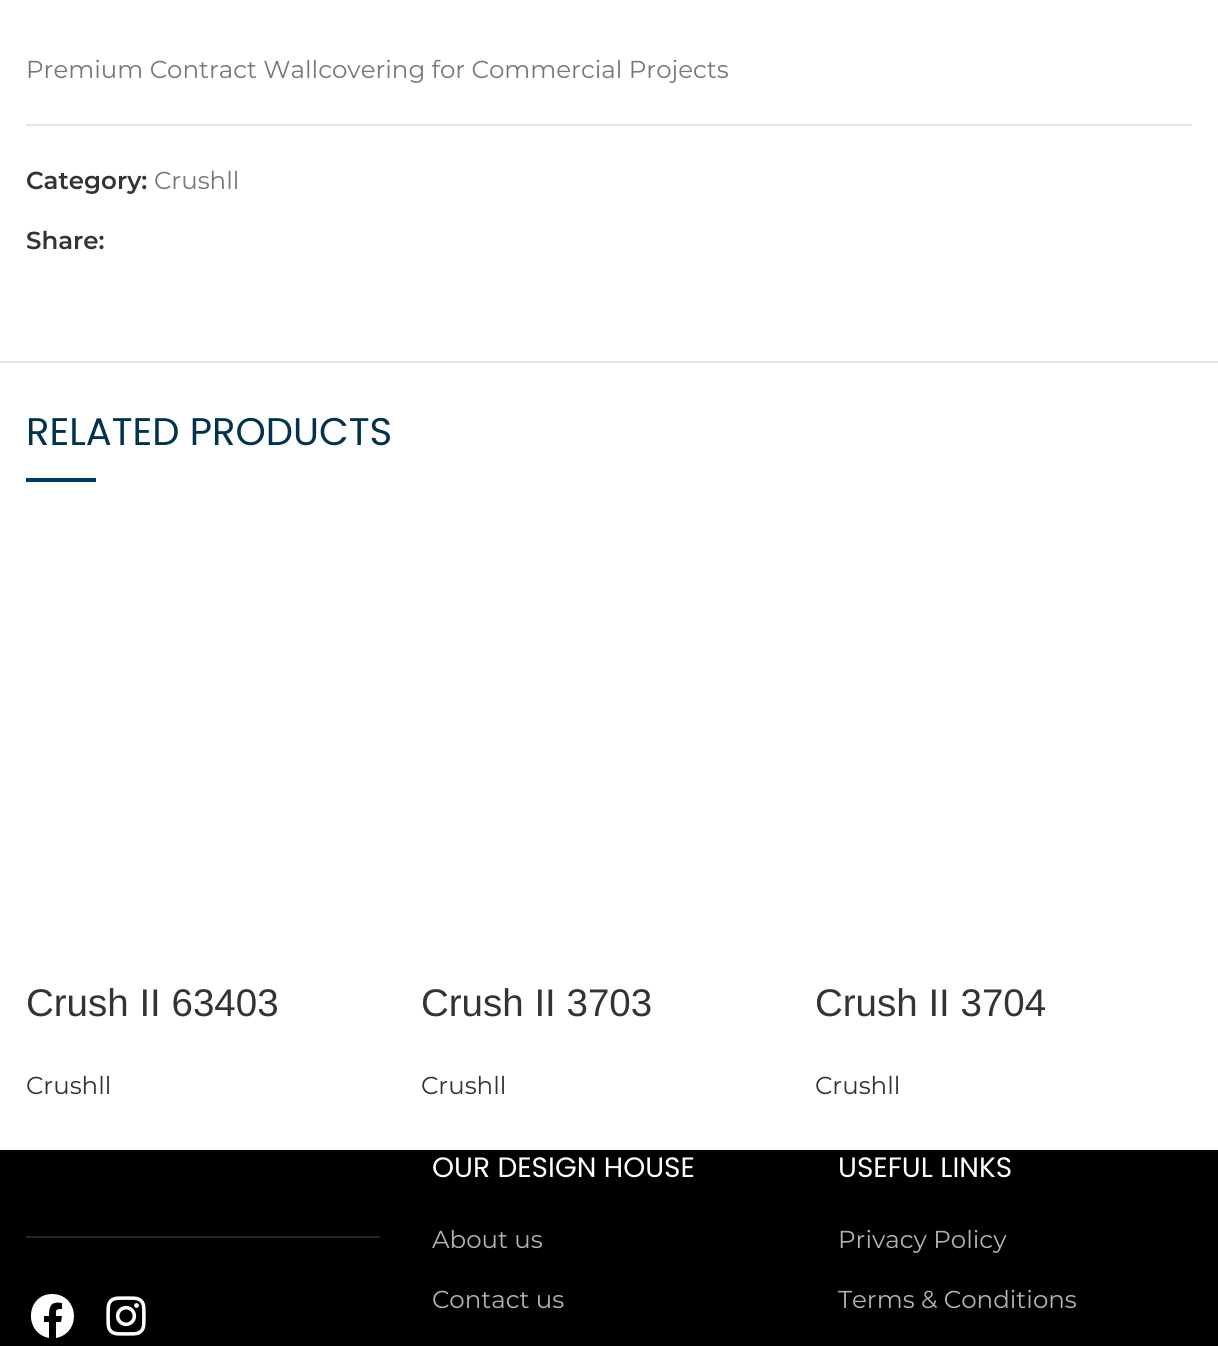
import math
import cairocffi as cairo

surface = cairo.ImageSurface(cairo.FORMAT_RGB24, 1218, 1346)
cr = cairo.Context(surface)
options = cairo.FontOptions()
options.set_hint_metrics(cairo.HINT_METRICS_OFF)
options.set_hint_style(cairo.HINT_STYLE_NONE)
cr.set_font_options(options)
cr.set_miter_limit(4)


def use_color(code):
    cr.set_source_rgb(*(v / 255 for v in bytes.fromhex(code[-6:])))


def picture(path, x, y, w, h):
    cr.save()
    cr.set_source_surface(cairo.ImageSurface.create_from_png(path), x, y)
    cr.rectangle(x, y, w, h)
    cr.fill()
    cr.restore()


use_color("#ffffff")
cr.paint()
cr.select_font_face("Montserrat")
cr.set_font_size(24.5)
use_color("#777777")
cr.move_to(26, 78)
cr.show_text("Premium Contract Wallcovering for Commercial Projects")
use_color("#e4e4e4")
cr.rectangle(26, 124, 1166, 2)
cr.fill()
cr.select_font_face("Montserrat SemiBold")
use_color("#333333")
cr.move_to(26, 189)
cr.show_text("Category:")
cr.select_font_face("Montserrat")
use_color("#777777")
cr.move_to(154, 189)
cr.show_text("Crushll")
cr.select_font_face("Montserrat SemiBold")
use_color("#333333")
cr.move_to(26, 249)
cr.show_text("Share:")
use_color("#e4e4e4")
cr.rectangle(0, 361, 1218, 2)
cr.fill()
cr.select_font_face("Poppins")
cr.set_font_size(38.5)
use_color("#00334e")
cr.move_to(26, 445)
cr.show_text("RELATED PRODUCTS")
use_color("#003663")
cr.rectangle(26, 478, 70, 4)
cr.fill()
cr.select_font_face("Liberation Sans")
use_color("#333333")
cr.move_to(26, 1016)
cr.show_text("Crush II 63403")
cr.select_font_face("Montserrat")
cr.set_font_size(24.5)
cr.move_to(26, 1094)
cr.show_text("Crushll")
cr.select_font_face("Liberation Sans")
cr.set_font_size(38.5)
cr.move_to(421, 1016)
cr.show_text("Crush II 3703")
cr.select_font_face("Montserrat")
cr.set_font_size(24.5)
cr.move_to(421, 1094)
cr.show_text("Crushll")
cr.select_font_face("Liberation Sans")
cr.set_font_size(38.5)
cr.move_to(815, 1016)
cr.show_text("Crush II 3704")
cr.select_font_face("Montserrat")
cr.set_font_size(24.5)
cr.move_to(815, 1094)
cr.show_text("Crushll")
use_color("#000000")
cr.rectangle(0, 1150, 1218, 196)
cr.fill()
use_color("#262626")
cr.rectangle(26, 1236, 354, 2)
cr.fill()
use_color("#ffffff")
cr.new_path()
cr.move_to(52, 1294)
cr.curve_to(26, 1294, 23, 1333, 49, 1338)
cr.line_to(49, 1322)
cr.line_to(44, 1322)
cr.line_to(44, 1316)
cr.line_to(49, 1316)
cr.curve_to(49, 1306, 51, 1301, 62, 1303)
cr.line_to(62, 1309)
cr.curve_to(55, 1309, 56, 1310, 56, 1316)
cr.line_to(62, 1316)
cr.line_to(61, 1322)
cr.line_to(56, 1322)
cr.line_to(56, 1338)
cr.curve_to(82, 1333, 79, 1294, 52, 1294)
cr.close_path()
cr.fill()
picture("img1.png", 106, 1296, 40, 40)
cr.select_font_face("Poppins")
cr.set_font_size(28)
cr.move_to(432, 1177)
cr.show_text("OUR DESIGN HOUSE")
cr.select_font_face("Montserrat")
cr.set_font_size(24.5)
use_color("#b3b3b3")
cr.move_to(432, 1248)
cr.show_text("About us")
cr.move_to(432, 1308)
cr.show_text("Contact us")
cr.select_font_face("Poppins")
cr.set_font_size(28)
use_color("#ffffff")
cr.move_to(838, 1177)
cr.show_text("USEFUL LINKS")
cr.select_font_face("Montserrat")
cr.set_font_size(24.5)
use_color("#b3b3b3")
cr.move_to(838, 1248)
cr.show_text("Privacy Policy")
cr.move_to(838, 1308)
cr.show_text("Terms & Conditions")
surface.write_to_png("result.png")
